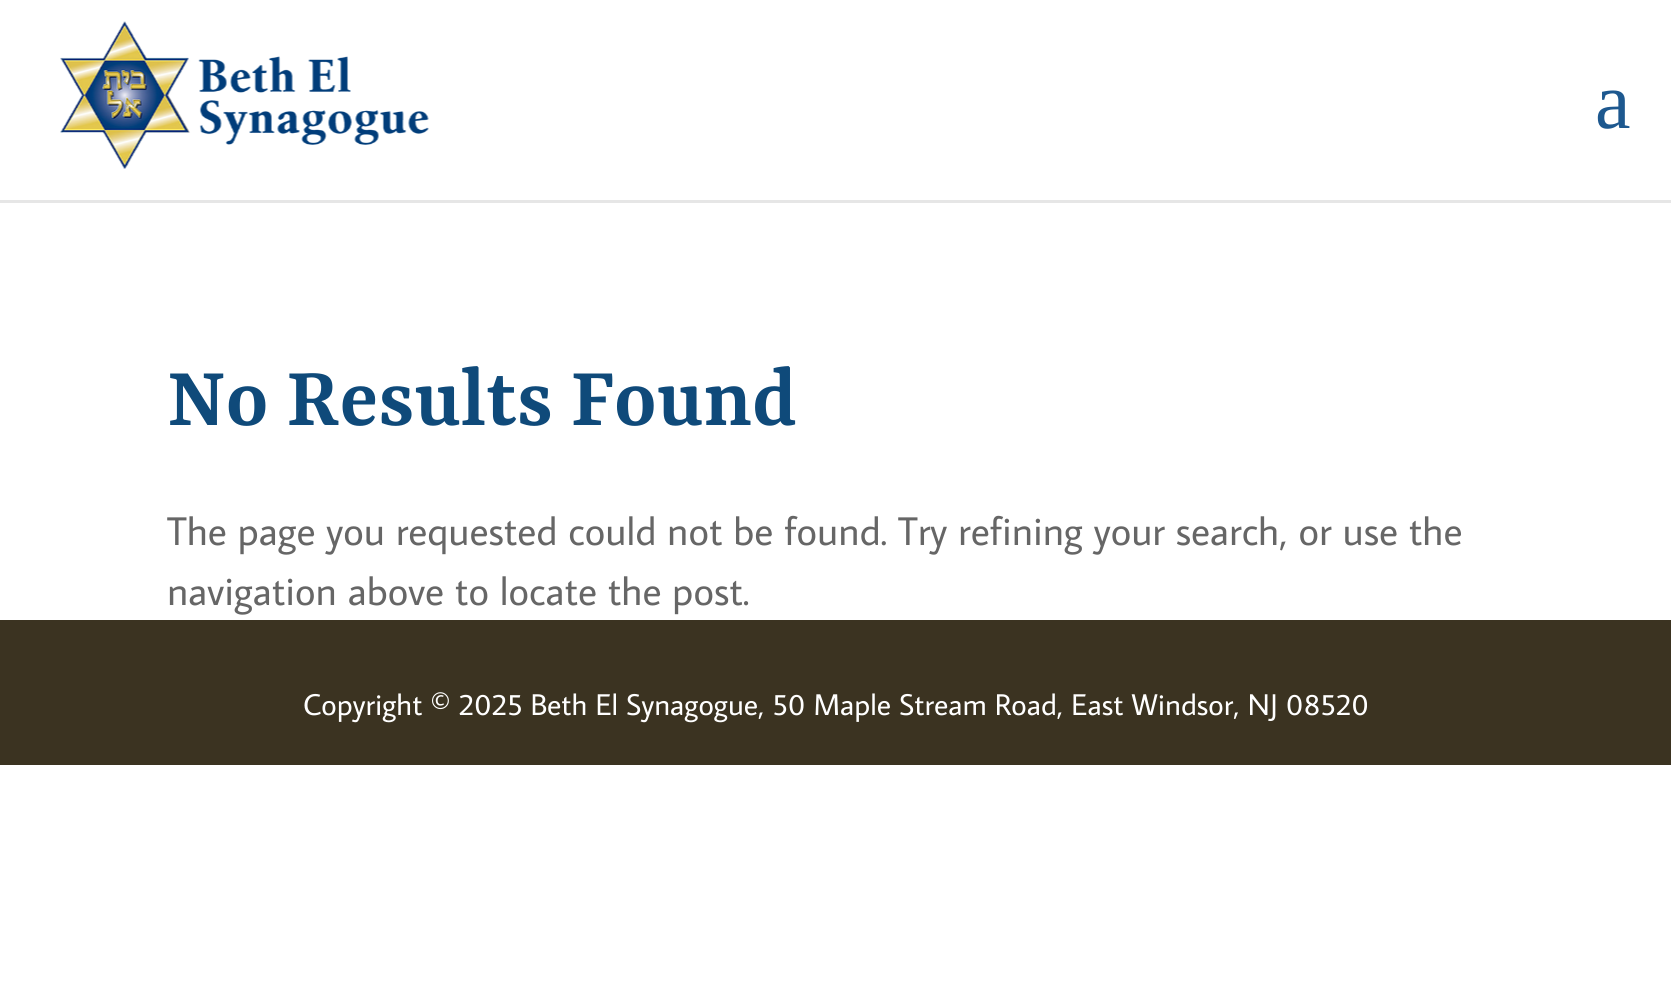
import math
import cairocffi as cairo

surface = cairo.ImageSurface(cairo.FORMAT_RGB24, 1671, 1004)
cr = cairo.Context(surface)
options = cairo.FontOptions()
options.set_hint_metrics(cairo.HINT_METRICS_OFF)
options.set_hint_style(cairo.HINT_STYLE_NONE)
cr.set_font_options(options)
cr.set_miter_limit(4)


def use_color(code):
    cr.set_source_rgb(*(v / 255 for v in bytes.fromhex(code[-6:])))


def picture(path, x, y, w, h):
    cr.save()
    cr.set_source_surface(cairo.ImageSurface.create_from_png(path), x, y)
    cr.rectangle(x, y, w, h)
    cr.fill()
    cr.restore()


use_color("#ffffff")
cr.paint()
use_color("#e6e6e6")
cr.new_path()
cr.move_to(0, 200)
cr.line_to(0, 203)
cr.line_to(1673, 203)
cr.line_to(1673, 3)
cr.line_to(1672, 3)
cr.line_to(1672, 200)
cr.close_path()
cr.fill()
picture("img1.png", 60, 21, 369, 148)
cr.select_font_face("Liberation Serif")
cr.set_font_size(80)
use_color("#1d588f")
cr.move_to(1595, 128)
cr.show_text("a")
cr.select_font_face("Yrsa SemiBold")
cr.set_font_size(90)
use_color("#0f4a7a")
cr.move_to(167, 425)
cr.show_text("No Results Found")
cr.select_font_face("Average Sans")
cr.set_font_size(40)
use_color("#666666")
cr.move_to(167, 545)
cr.show_text("The page you requested could not be found. Try refining your search, or use the")
cr.move_to(167, 605)
cr.show_text("navigation above to locate the post.")
use_color("#3b3321")
cr.rectangle(0, 620, 1671, 145)
cr.fill()
cr.set_font_size(30)
use_color("#ffffff")
cr.move_to(303, 715)
cr.show_text("Copyright © 2025 Beth El Synagogue, 50 Maple Stream Road, East Windsor, NJ 08520")
surface.write_to_png("result.png")
